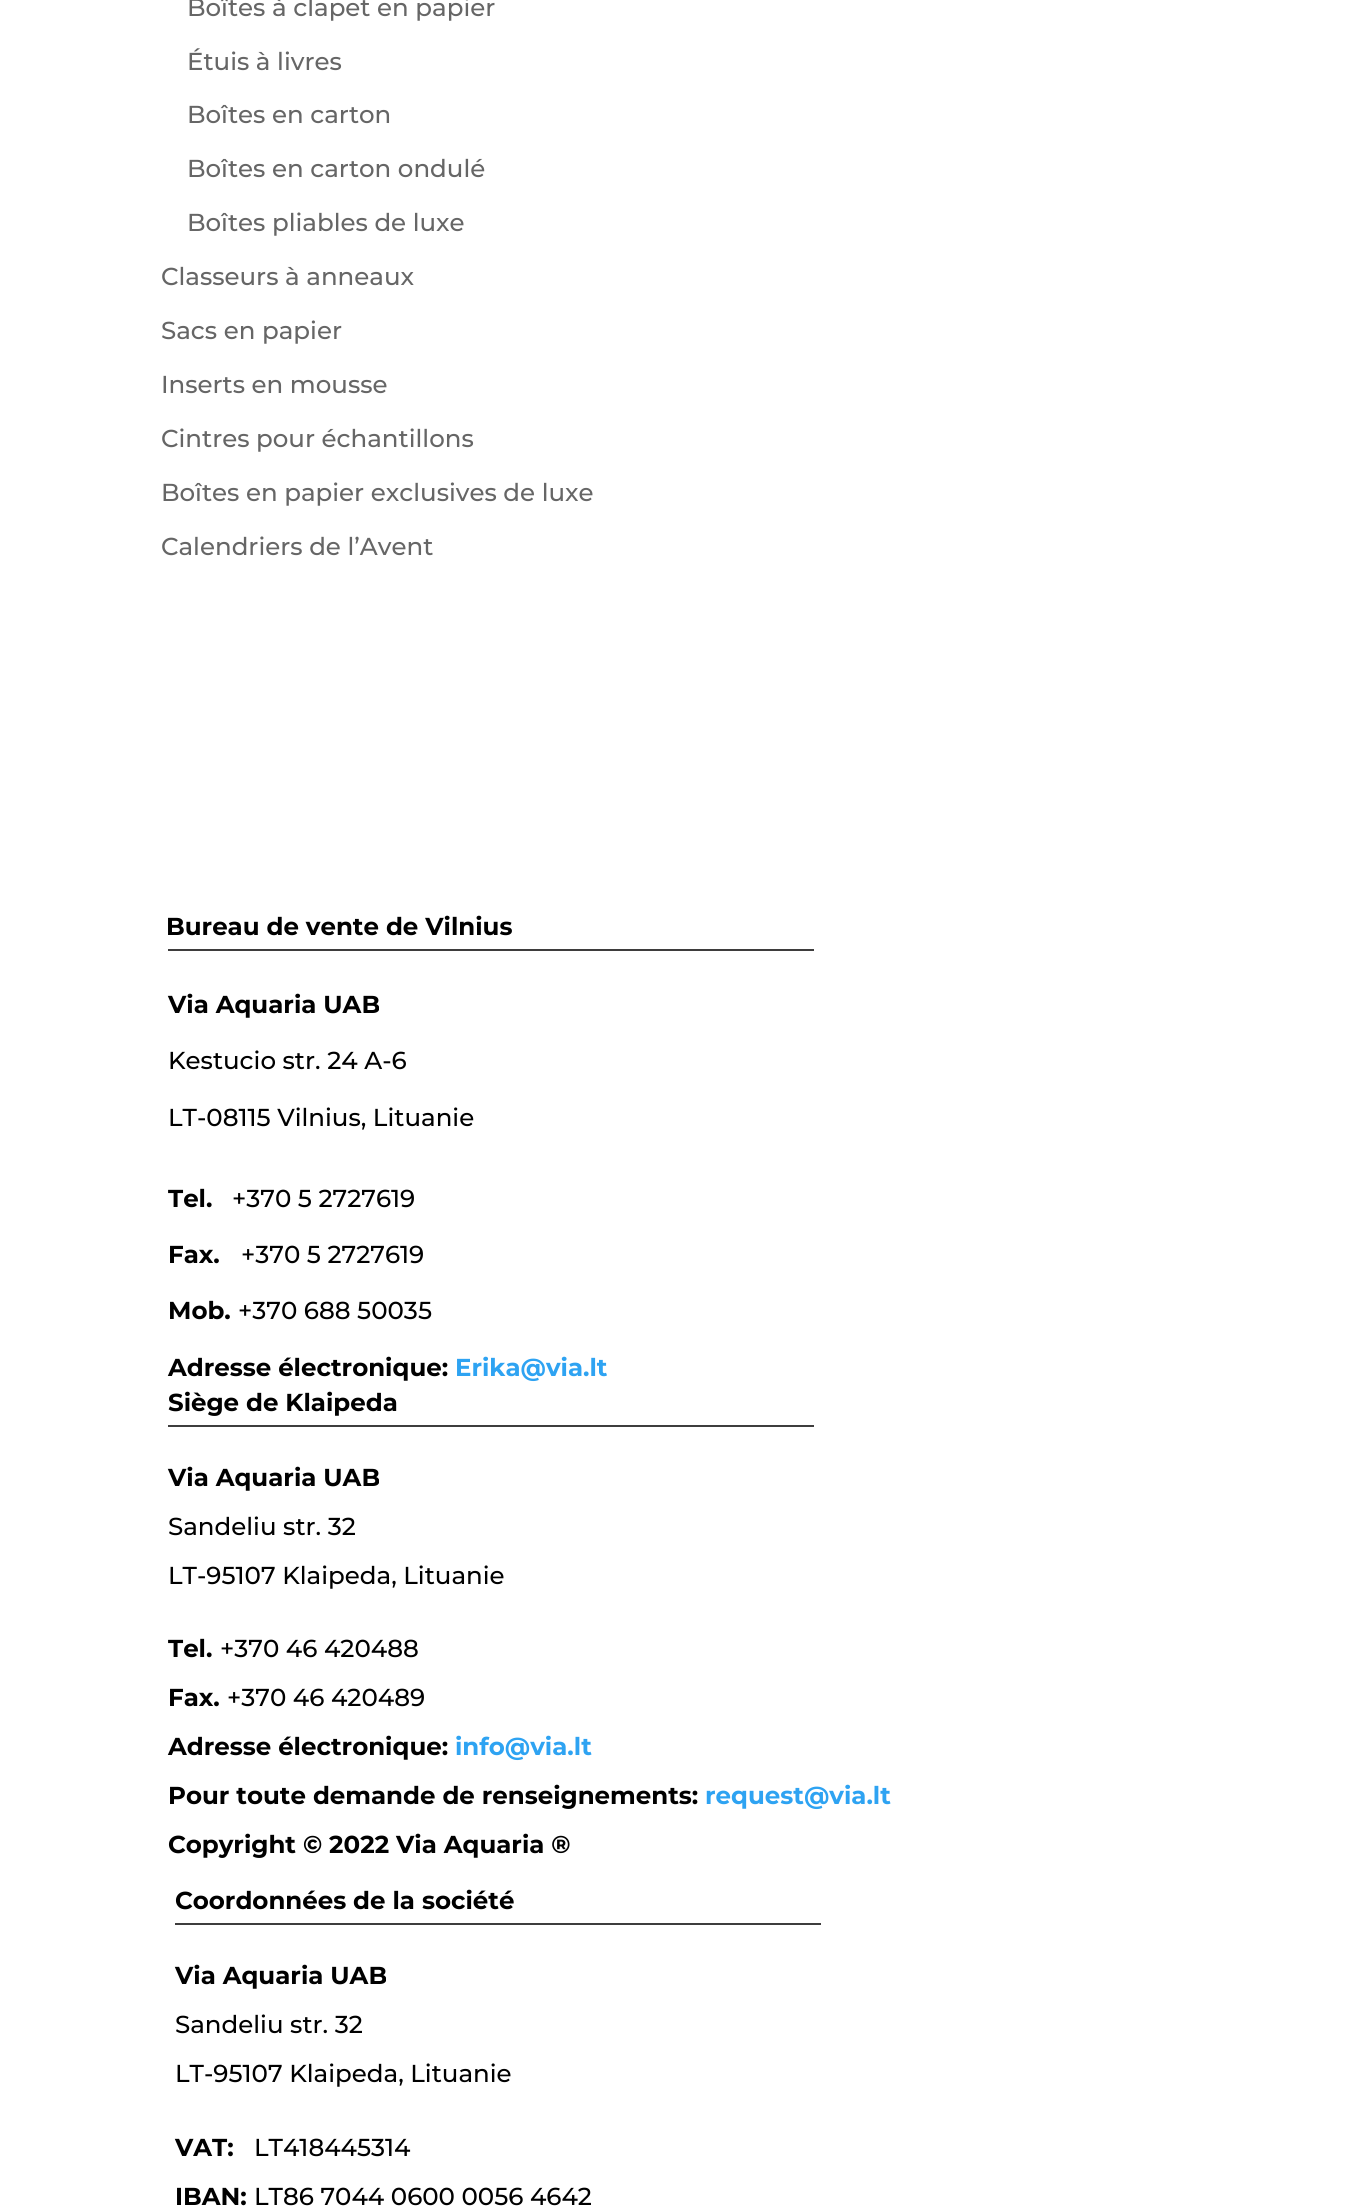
import math
import cairocffi as cairo

surface = cairo.ImageSurface(cairo.FORMAT_RGB24, 1345, 2210)
cr = cairo.Context(surface)
options = cairo.FontOptions()
options.set_hint_metrics(cairo.HINT_METRICS_OFF)
options.set_hint_style(cairo.HINT_STYLE_NONE)
cr.set_font_options(options)
cr.set_miter_limit(4)


def use_color(code):
    cr.set_source_rgb(*(v / 255 for v in bytes.fromhex(code[-6:])))


use_color("#ffffff")
cr.paint()
cr.select_font_face("Montserrat Medium")
cr.set_font_size(24.5)
use_color("#666666")
cr.move_to(187, 16)
cr.show_text("Boîtes à clapet en papier")
cr.move_to(187, 70)
cr.show_text("Étuis à livres")
cr.move_to(187, 123)
cr.show_text("Boîtes en carton")
cr.move_to(187, 177)
cr.show_text("Boîtes en carton ondulé")
cr.move_to(187, 231)
cr.show_text("Boîtes pliables de luxe")
cr.move_to(161, 285)
cr.show_text("Classeurs à anneaux")
cr.move_to(161, 339)
cr.show_text("Sacs en papier")
cr.move_to(161, 393)
cr.show_text("Inserts en mousse")
cr.move_to(161, 447)
cr.show_text("Cintres pour échantillons")
cr.move_to(161, 501)
cr.show_text("Boîtes en papier exclusives de luxe")
cr.move_to(161, 555)
cr.show_text("Calendriers de l’Avent")
cr.select_font_face("Montserrat", cairo.FONT_SLANT_NORMAL, cairo.FONT_WEIGHT_BOLD)
use_color("#000000")
cr.move_to(166, 935)
cr.show_text("Bureau de vente de Vilnius")
use_color("#3e3d3d")
cr.rectangle(168, 949, 646, 2)
cr.fill()
use_color("#000000")
cr.move_to(168, 1013)
cr.show_text("Via Aquaria UAB")
cr.select_font_face("Montserrat Medium")
cr.move_to(168, 1069)
cr.show_text("Kestucio str. 24 A-6")
cr.move_to(168, 1126)
cr.show_text("LT-08115 Vilnius, Lituanie")
cr.select_font_face("Montserrat", cairo.FONT_SLANT_NORMAL, cairo.FONT_WEIGHT_BOLD)
cr.move_to(168, 1207)
cr.show_text("Tel.")
cr.select_font_face("Montserrat Medium")
cr.move_to(232, 1207)
cr.show_text("+370 5 2727619")
cr.select_font_face("Montserrat", cairo.FONT_SLANT_NORMAL, cairo.FONT_WEIGHT_BOLD)
cr.move_to(168, 1263)
cr.show_text("Fax.")
cr.select_font_face("Montserrat Medium")
cr.move_to(241, 1263)
cr.show_text("+370 5 2727619")
cr.select_font_face("Montserrat", cairo.FONT_SLANT_NORMAL, cairo.FONT_WEIGHT_BOLD)
cr.move_to(168, 1319)
cr.show_text("Mob.")
cr.select_font_face("Montserrat Medium")
cr.move_to(238, 1319)
cr.show_text("+370 688 50035")
cr.select_font_face("Montserrat", cairo.FONT_SLANT_NORMAL, cairo.FONT_WEIGHT_BOLD)
cr.move_to(168, 1376)
cr.show_text("Adresse électronique:")
use_color("#2ea3f2")
cr.move_to(455, 1376)
cr.show_text("Erika@via.lt")
use_color("#000000")
cr.move_to(168, 1411)
cr.show_text("Siège de Klaipeda")
use_color("#3e3d3d")
cr.rectangle(168, 1425, 646, 2)
cr.fill()
use_color("#000000")
cr.move_to(168, 1486)
cr.show_text("Via Aquaria UAB")
cr.select_font_face("Montserrat Medium")
cr.move_to(168, 1535)
cr.show_text("Sandeliu str. 32")
cr.move_to(168, 1584)
cr.show_text("LT-95107 Klaipeda, Lituanie")
cr.select_font_face("Montserrat", cairo.FONT_SLANT_NORMAL, cairo.FONT_WEIGHT_BOLD)
cr.move_to(168, 1657)
cr.show_text("Tel.")
cr.select_font_face("Montserrat Medium")
cr.move_to(220, 1657)
cr.show_text("+370 46 420488")
cr.select_font_face("Montserrat", cairo.FONT_SLANT_NORMAL, cairo.FONT_WEIGHT_BOLD)
cr.move_to(168, 1706)
cr.show_text("Fax.")
cr.select_font_face("Montserrat Medium")
cr.move_to(227, 1706)
cr.show_text("+370 46 420489")
cr.select_font_face("Montserrat", cairo.FONT_SLANT_NORMAL, cairo.FONT_WEIGHT_BOLD)
cr.move_to(168, 1755)
cr.show_text("Adresse électronique:")
use_color("#2ea3f2")
cr.move_to(455, 1755)
cr.show_text("info@via.lt")
use_color("#000000")
cr.move_to(168, 1804)
cr.show_text("Pour toute demande de renseignements:")
use_color("#2ea3f2")
cr.move_to(705, 1804)
cr.show_text("request@via.lt")
use_color("#000000")
cr.move_to(168, 1853)
cr.show_text("Copyright © 2022 Via Aquaria ®")
cr.move_to(175, 1909)
cr.show_text("Coordonnées de la société")
use_color("#3e3d3d")
cr.rectangle(175, 1923, 646, 2)
cr.fill()
use_color("#000000")
cr.move_to(175, 1984)
cr.show_text("Via Aquaria UAB")
cr.select_font_face("Montserrat Medium")
cr.move_to(175, 2033)
cr.show_text("Sandeliu str. 32")
cr.move_to(175, 2082)
cr.show_text("LT-95107 Klaipeda, Lituanie")
cr.select_font_face("Montserrat", cairo.FONT_SLANT_NORMAL, cairo.FONT_WEIGHT_BOLD)
cr.move_to(175, 2156)
cr.show_text("VAT:")
cr.select_font_face("Montserrat Medium")
cr.move_to(254, 2156)
cr.show_text("LT418445314")
cr.select_font_face("Montserrat", cairo.FONT_SLANT_NORMAL, cairo.FONT_WEIGHT_BOLD)
cr.move_to(175, 2205)
cr.show_text("IBAN:")
cr.select_font_face("Montserrat Medium")
cr.move_to(254, 2205)
cr.show_text("LT86 7044 0600 0056 4642")
surface.write_to_png("result.png")
